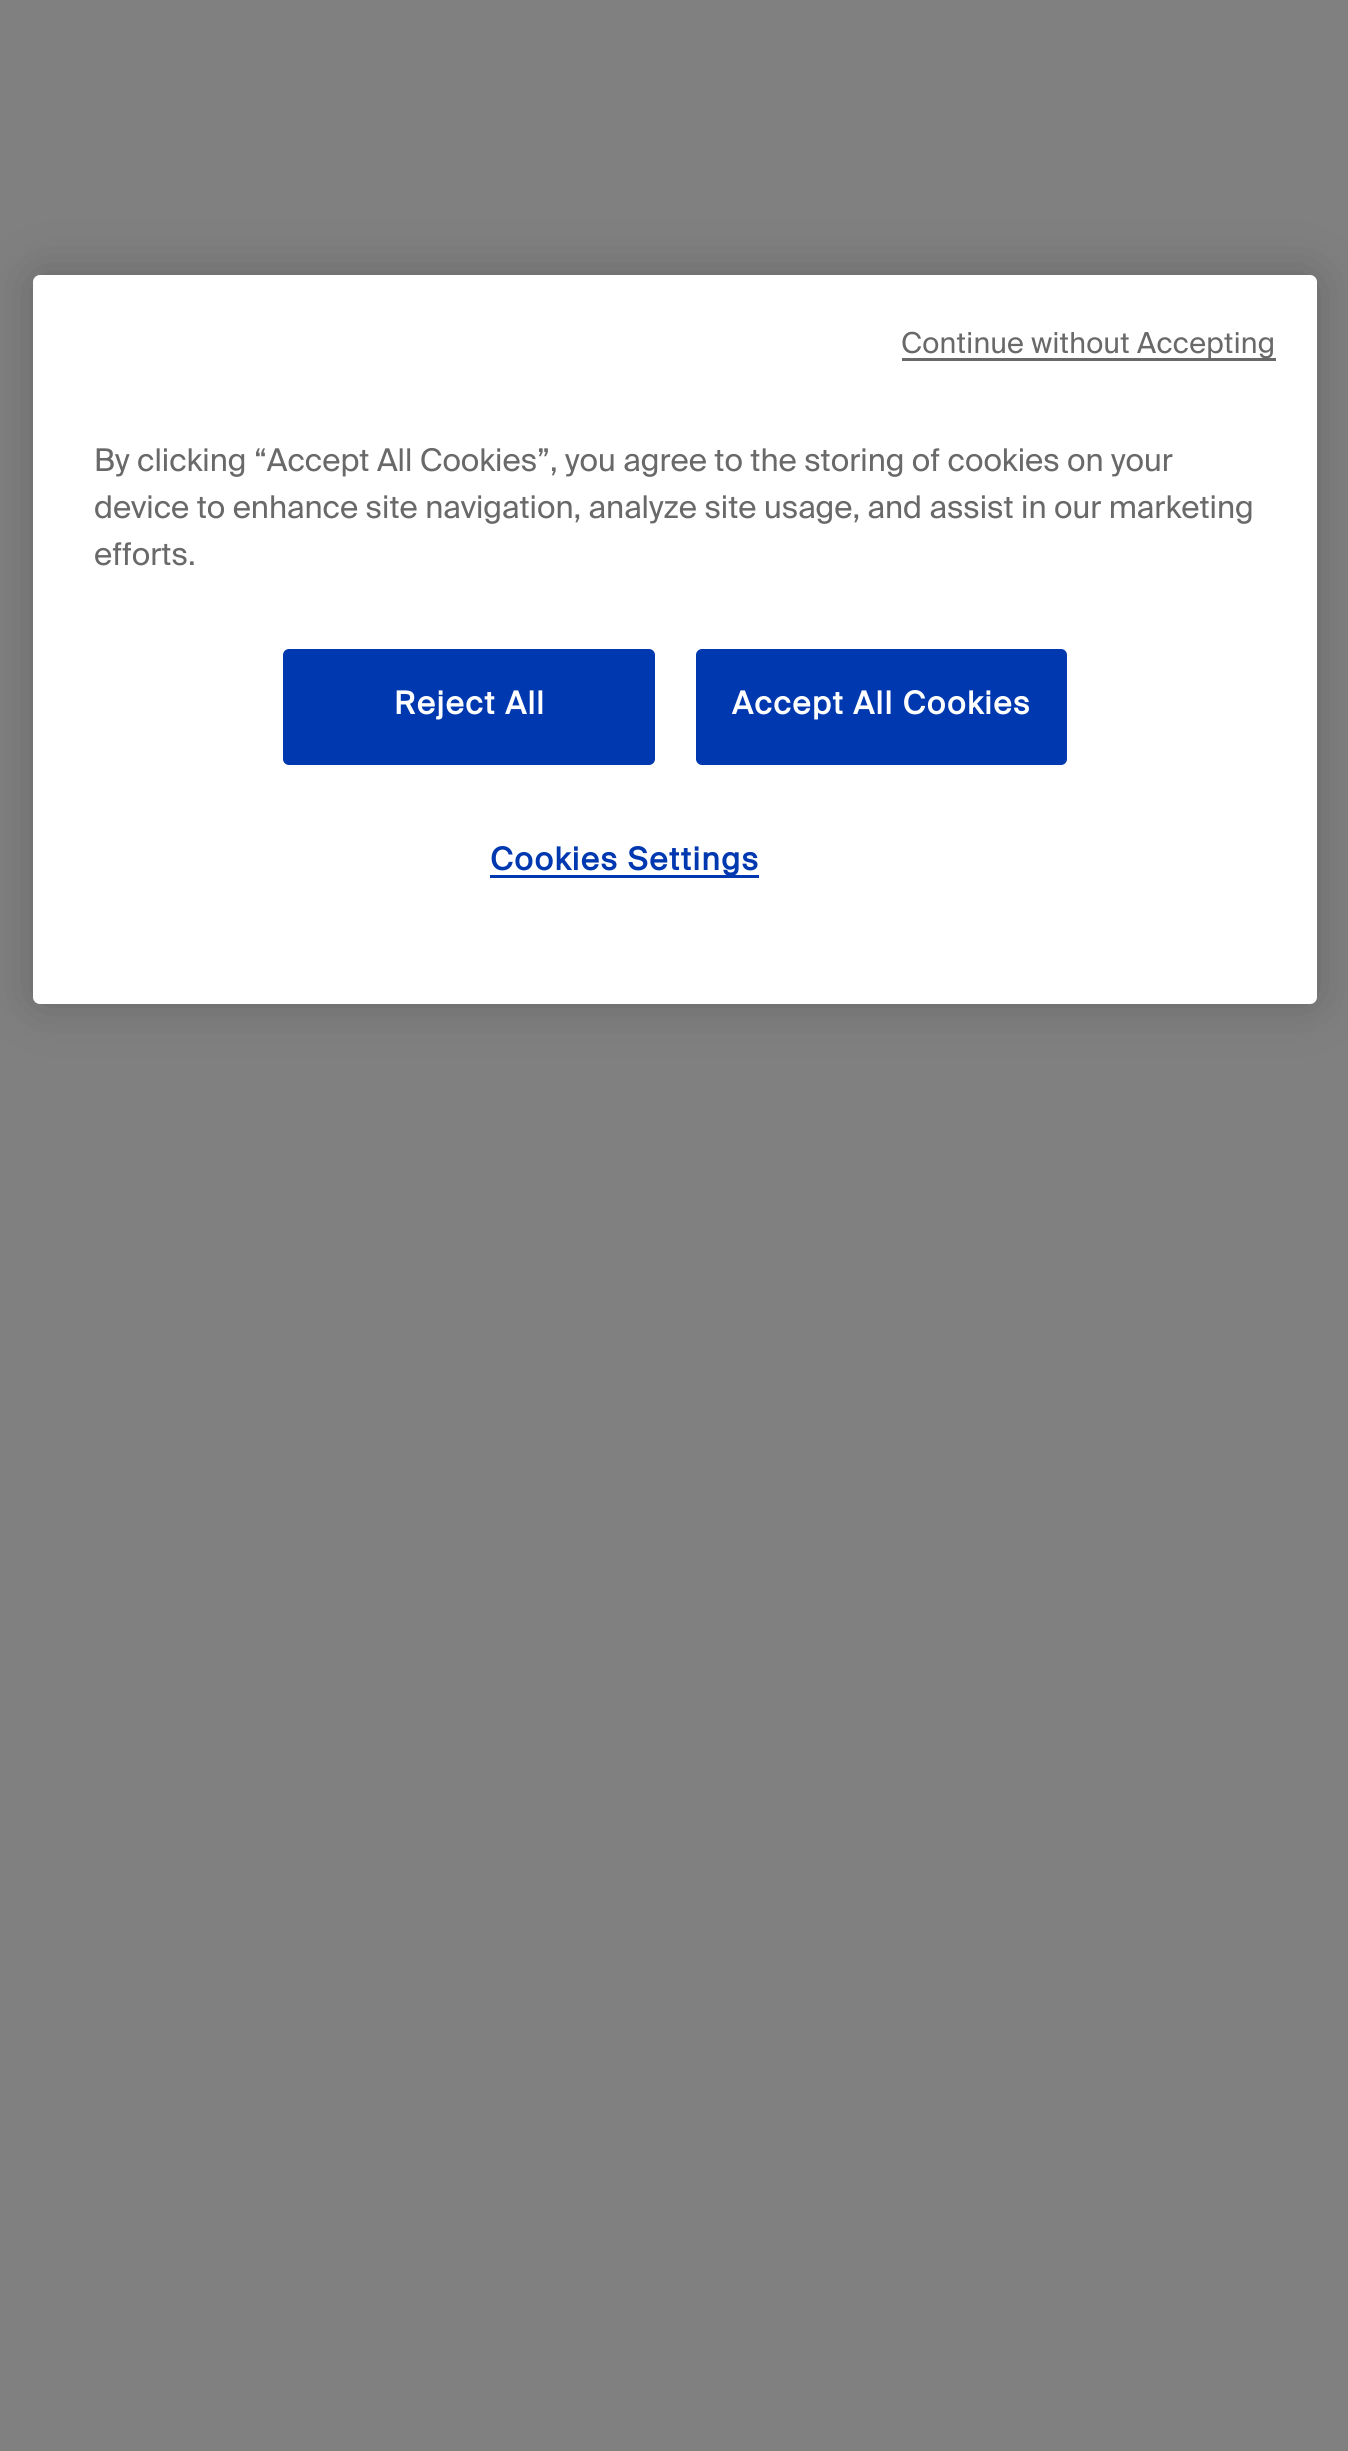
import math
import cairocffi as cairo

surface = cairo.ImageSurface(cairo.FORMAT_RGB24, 1348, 2451)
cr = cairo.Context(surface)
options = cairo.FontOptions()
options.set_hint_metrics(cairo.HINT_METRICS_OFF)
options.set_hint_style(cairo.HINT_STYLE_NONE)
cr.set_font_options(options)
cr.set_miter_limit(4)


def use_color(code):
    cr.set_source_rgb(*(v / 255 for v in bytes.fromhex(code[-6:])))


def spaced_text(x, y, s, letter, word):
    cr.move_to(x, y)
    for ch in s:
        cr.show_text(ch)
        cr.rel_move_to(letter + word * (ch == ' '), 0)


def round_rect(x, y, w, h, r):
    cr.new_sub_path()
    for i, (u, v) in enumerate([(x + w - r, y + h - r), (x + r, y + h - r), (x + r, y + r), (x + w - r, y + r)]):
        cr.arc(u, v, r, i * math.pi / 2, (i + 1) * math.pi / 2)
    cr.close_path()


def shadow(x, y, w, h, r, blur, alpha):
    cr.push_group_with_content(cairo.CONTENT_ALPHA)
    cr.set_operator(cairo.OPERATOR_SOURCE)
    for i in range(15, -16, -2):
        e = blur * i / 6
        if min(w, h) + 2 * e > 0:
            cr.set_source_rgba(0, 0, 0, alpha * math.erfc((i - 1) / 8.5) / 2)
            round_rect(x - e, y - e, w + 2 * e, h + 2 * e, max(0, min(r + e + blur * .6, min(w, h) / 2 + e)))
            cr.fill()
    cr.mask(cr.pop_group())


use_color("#808080")
cr.paint()
use_color("#000000")
shadow(33, 275, 1284, 729, 7, 25, 0.2)
use_color("#ffffff")
round_rect(33, 275, 1284, 729, 7)
cr.fill()
use_color("#696969")
cr.rectangle(902, 358, 374, 3)
cr.fill()
cr.select_font_face("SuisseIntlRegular")
cr.set_font_size(28.9)
spaced_text(901, 353, "Continue without Accepting", 0.3, 0)
cr.set_font_size(31.3)
cr.move_to(94, 471)
cr.show_text("By clicking “Accept All Cookies”, you agree to the storing of cookies on your")
cr.move_to(94, 518)
cr.show_text("device to enhance site navigation, analyze site usage, and assist in our marketing")
cr.move_to(94, 565)
cr.show_text("efforts.")
use_color("#0038b0")
round_rect(284.5, 650.5, 369, 113, 4.5)
cr.fill_preserve()
cr.set_line_width(3)
cr.stroke()
cr.select_font_face("SuisseIntlRegular", cairo.FONT_SLANT_NORMAL, cairo.FONT_WEIGHT_BOLD)
use_color("#ffffff")
spaced_text(394, 714, "Reject All", 1.6, 0)
use_color("#0038b0")
round_rect(697.5, 650.5, 368, 113, 4.5)
cr.fill_preserve()
cr.stroke()
use_color("#ffffff")
spaced_text(732, 714, "Accept All Cookies", 1.6, 0)
use_color("#0038b0")
cr.rectangle(490, 875, 269, 3)
cr.fill()
spaced_text(490, 870, "Cookies Settings", 1.6, 0)
surface.write_to_png("result.png")
